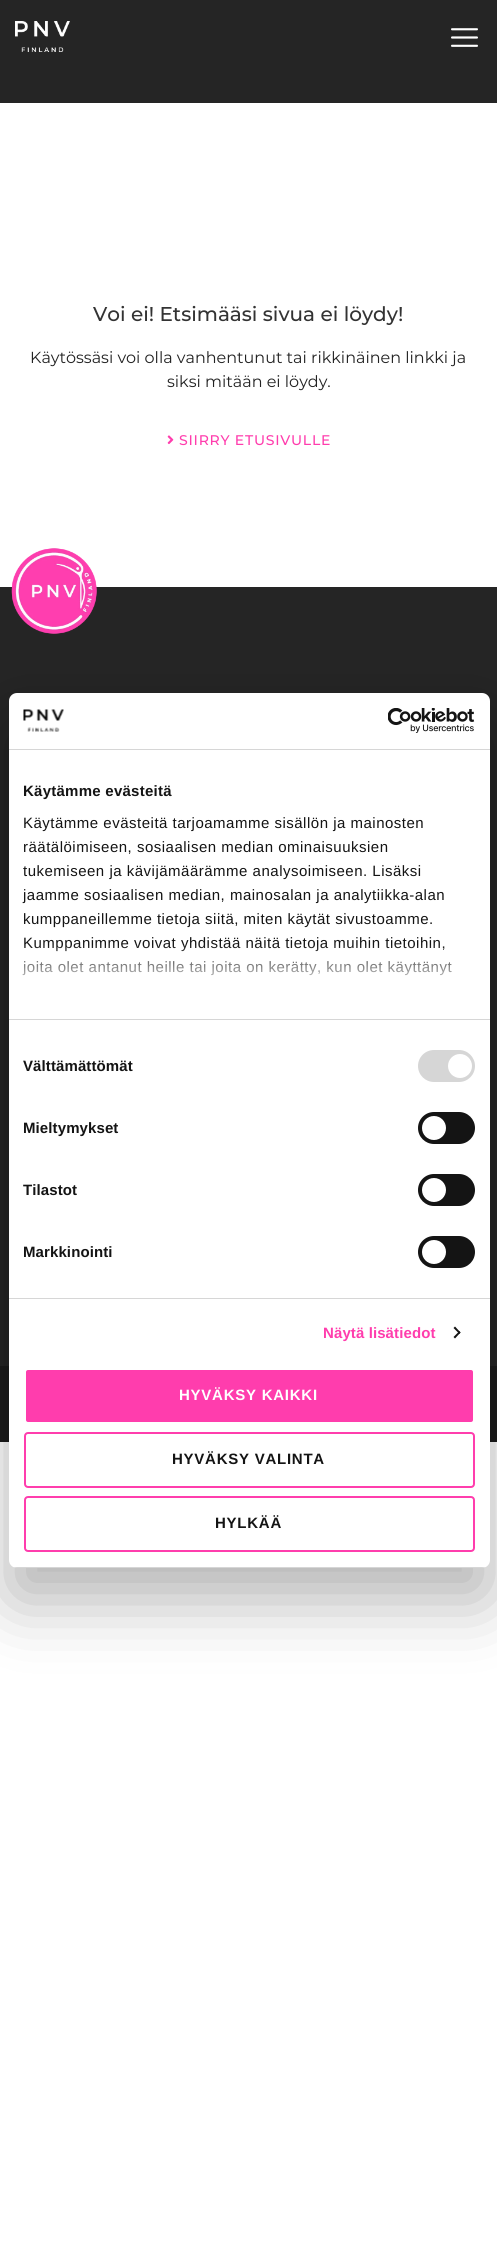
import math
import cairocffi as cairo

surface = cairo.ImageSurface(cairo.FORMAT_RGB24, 497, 2260)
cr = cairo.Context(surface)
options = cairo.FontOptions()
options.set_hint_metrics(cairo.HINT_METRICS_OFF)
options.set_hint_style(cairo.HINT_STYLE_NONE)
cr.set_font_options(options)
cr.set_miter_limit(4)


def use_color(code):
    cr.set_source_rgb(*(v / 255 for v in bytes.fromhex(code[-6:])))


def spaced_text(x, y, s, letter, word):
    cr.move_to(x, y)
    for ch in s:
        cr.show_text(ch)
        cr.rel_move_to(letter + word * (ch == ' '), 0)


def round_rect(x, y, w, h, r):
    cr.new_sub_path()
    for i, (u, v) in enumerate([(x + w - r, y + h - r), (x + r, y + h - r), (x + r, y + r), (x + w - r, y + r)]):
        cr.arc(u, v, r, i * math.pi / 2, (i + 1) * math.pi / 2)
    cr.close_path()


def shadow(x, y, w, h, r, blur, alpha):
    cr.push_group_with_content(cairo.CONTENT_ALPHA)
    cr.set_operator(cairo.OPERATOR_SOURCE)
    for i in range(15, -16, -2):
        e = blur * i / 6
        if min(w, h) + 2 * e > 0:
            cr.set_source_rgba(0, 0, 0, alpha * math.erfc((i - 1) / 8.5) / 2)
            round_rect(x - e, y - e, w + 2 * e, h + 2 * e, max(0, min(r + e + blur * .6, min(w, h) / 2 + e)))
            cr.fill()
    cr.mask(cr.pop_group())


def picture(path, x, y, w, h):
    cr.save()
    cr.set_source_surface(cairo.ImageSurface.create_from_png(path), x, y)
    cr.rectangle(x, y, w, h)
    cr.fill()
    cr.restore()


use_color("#ffffff")
cr.paint()
use_color("#252525")
cr.rectangle(0, 0, 497, 103)
cr.fill()
picture("img1.png", 15, 21, 55, 31)
picture("img2.png", 451, 28, 27, 19)
cr.select_font_face("Montserrat Medium")
cr.set_font_size(20)
use_color("#333333")
cr.move_to(93, 321)
cr.show_text("Voi ei! Etsimääsi sivua ei löydy!")
cr.select_font_face("Montserrat")
cr.set_font_size(16)
use_color("#222222")
cr.move_to(30, 363)
cr.show_text("Käytössäsi voi olla vanhentunut tai rikkinäinen linkki ja")
cr.move_to(167, 387)
cr.show_text("siksi mitään ei löydy.")
picture("img3.png", 167, 435, 7, 10)
cr.select_font_face("Montserrat Medium")
cr.set_font_size(14)
use_color("#ff3dad")
spaced_text(179, 445, "SIIRRY ETUSIVULLE", 0.75, 0)
use_color("#252525")
cr.rectangle(0, 587, 497, 779)
cr.fill()
picture("img4.png", 11, 548, 86, 86)
use_color("#1b1b1b")
cr.rectangle(0, 1366, 497, 76)
cr.fill()
use_color("#000000")
shadow(9, 725, 481, 875, 8, 34, 0.3)
use_color("#ffffff")
round_rect(9, 693, 481, 875, 8)
cr.fill()
use_color("#d6d6d6")
cr.rectangle(9, 749, 481, 1)
cr.fill()
picture("img5.png", 23, 709, 41, 23)
picture("img6.png", 388, 708, 87, 25)
cr.rectangle(9, 1019, 481, 1)
cr.fill()
cr.select_font_face("Liberation Sans", cairo.FONT_SLANT_NORMAL, cairo.FONT_WEIGHT_BOLD)
cr.set_font_size(15)
use_color("#141414")
spaced_text(23, 796, "Käytämme evästeitä", 0.25, 0)
cr.select_font_face("Liberation Sans")
spaced_text(23, 828, "Käytämme evästeitä tarjoamamme sisällön ja mainosten", 0.5, 0)
spaced_text(23, 852, "räätälöimiseen, sosiaalisen median ominaisuuksien", 0.5, 0)
spaced_text(23, 876, "tukemiseen ja kävijämäärämme analysoimiseen. Lisäksi", 0.5, 0)
spaced_text(23, 900, "jaamme sosiaalisen median, mainosalan ja analytiikka-alan", 0.5, 0)
spaced_text(23, 924, "kumppaneillemme tietoja siitä, miten käytät sivustoamme.", 0.5, 0)
spaced_text(23, 948, "Kumppanimme voivat yhdistää näitä tietoja muihin tietoihin,", 0.5, 0)
spaced_text(23, 972, "joita olet antanut heille tai joita on kerätty, kun olet käyttänyt", 0.5, 0)
gradient = cairo.LinearGradient(243, 1019, 243, 944)
gradient.add_color_stop_rgba(0, 1, 1, 1, 1)
gradient.add_color_stop_rgba(0.5, 1, 1, 1, 0.8)
gradient.add_color_stop_rgba(1, 1, 1, 1, 0)
cr.set_source(gradient)
cr.rectangle(22, 945, 430, 31)
cr.fill()
use_color("#d6d6d6")
cr.rectangle(9, 1298, 481, 1)
cr.fill()
cr.select_font_face("Liberation Sans", cairo.FONT_SLANT_NORMAL, cairo.FONT_WEIGHT_BOLD)
use_color("#141414")
spaced_text(23, 1071, "Välttämättömät", 0.1, 0)
use_color("#d6d6d6")
round_rect(418, 1050, 57, 32, 16)
cr.fill()
use_color("#ffffff")
cr.arc(460, 1066, 12, 0, 2 * math.pi)
cr.fill()
use_color("#141414")
spaced_text(23, 1133, "Mieltymykset", 0.1, 0)
round_rect(418, 1112, 57, 32, 16)
cr.fill()
use_color("#ffffff")
cr.arc(434, 1128, 12, 0, 2 * math.pi)
cr.fill()
use_color("#141414")
spaced_text(23, 1195, "Tilastot", 0.1, 0)
round_rect(418, 1174, 57, 32, 16)
cr.fill()
use_color("#ffffff")
cr.arc(434, 1190, 12, 0, 2 * math.pi)
cr.fill()
use_color("#141414")
spaced_text(23, 1257, "Markkinointi", 0.1, 0)
round_rect(418, 1236, 57, 32, 16)
cr.fill()
use_color("#ffffff")
cr.arc(434, 1252, 12, 0, 2 * math.pi)
cr.fill()
use_color("#ff3dad")
spaced_text(323, 1338, "Näytä lisätiedot", 0.1, 0)
use_color("#141414")
cr.new_path()
cr.move_to(455, 1326.5)
cr.line_to(460.5, 1332.5)
cr.line_to(459.5, 1334)
cr.line_to(453.5, 1328)
cr.close_path()
cr.fill()
cr.new_path()
cr.move_to(459.5, 1331)
cr.line_to(460.5, 1332.5)
cr.line_to(455, 1338.5)
cr.line_to(453.5, 1337)
cr.close_path()
cr.fill()
cr.save()
round_rect(9, 693, 481, 875, 8)
cr.clip()
use_color("#d6d6d6")
cr.rectangle(9, 1567, 481, 1)
cr.fill()
cr.restore()
use_color("#ff3dad")
round_rect(25, 1369, 449, 54, 3)
cr.fill_preserve()
use_color("#ffffff")
cr.stroke()
spaced_text(179, 1400, "HYVÄKSY KAIKKI", 0.75, 0)
round_rect(25, 1433, 449, 54, 3)
use_color("#ff3dad")
cr.stroke()
use_color("#141414")
spaced_text(172, 1464, "HYVÄKSY VALINTA", 0.75, 0)
round_rect(25, 1497, 449, 54, 3)
use_color("#ff3dad")
cr.stroke()
use_color("#141414")
spaced_text(215, 1528, "HYLKÄÄ", 0.75, 0)
surface.write_to_png("result.png")
